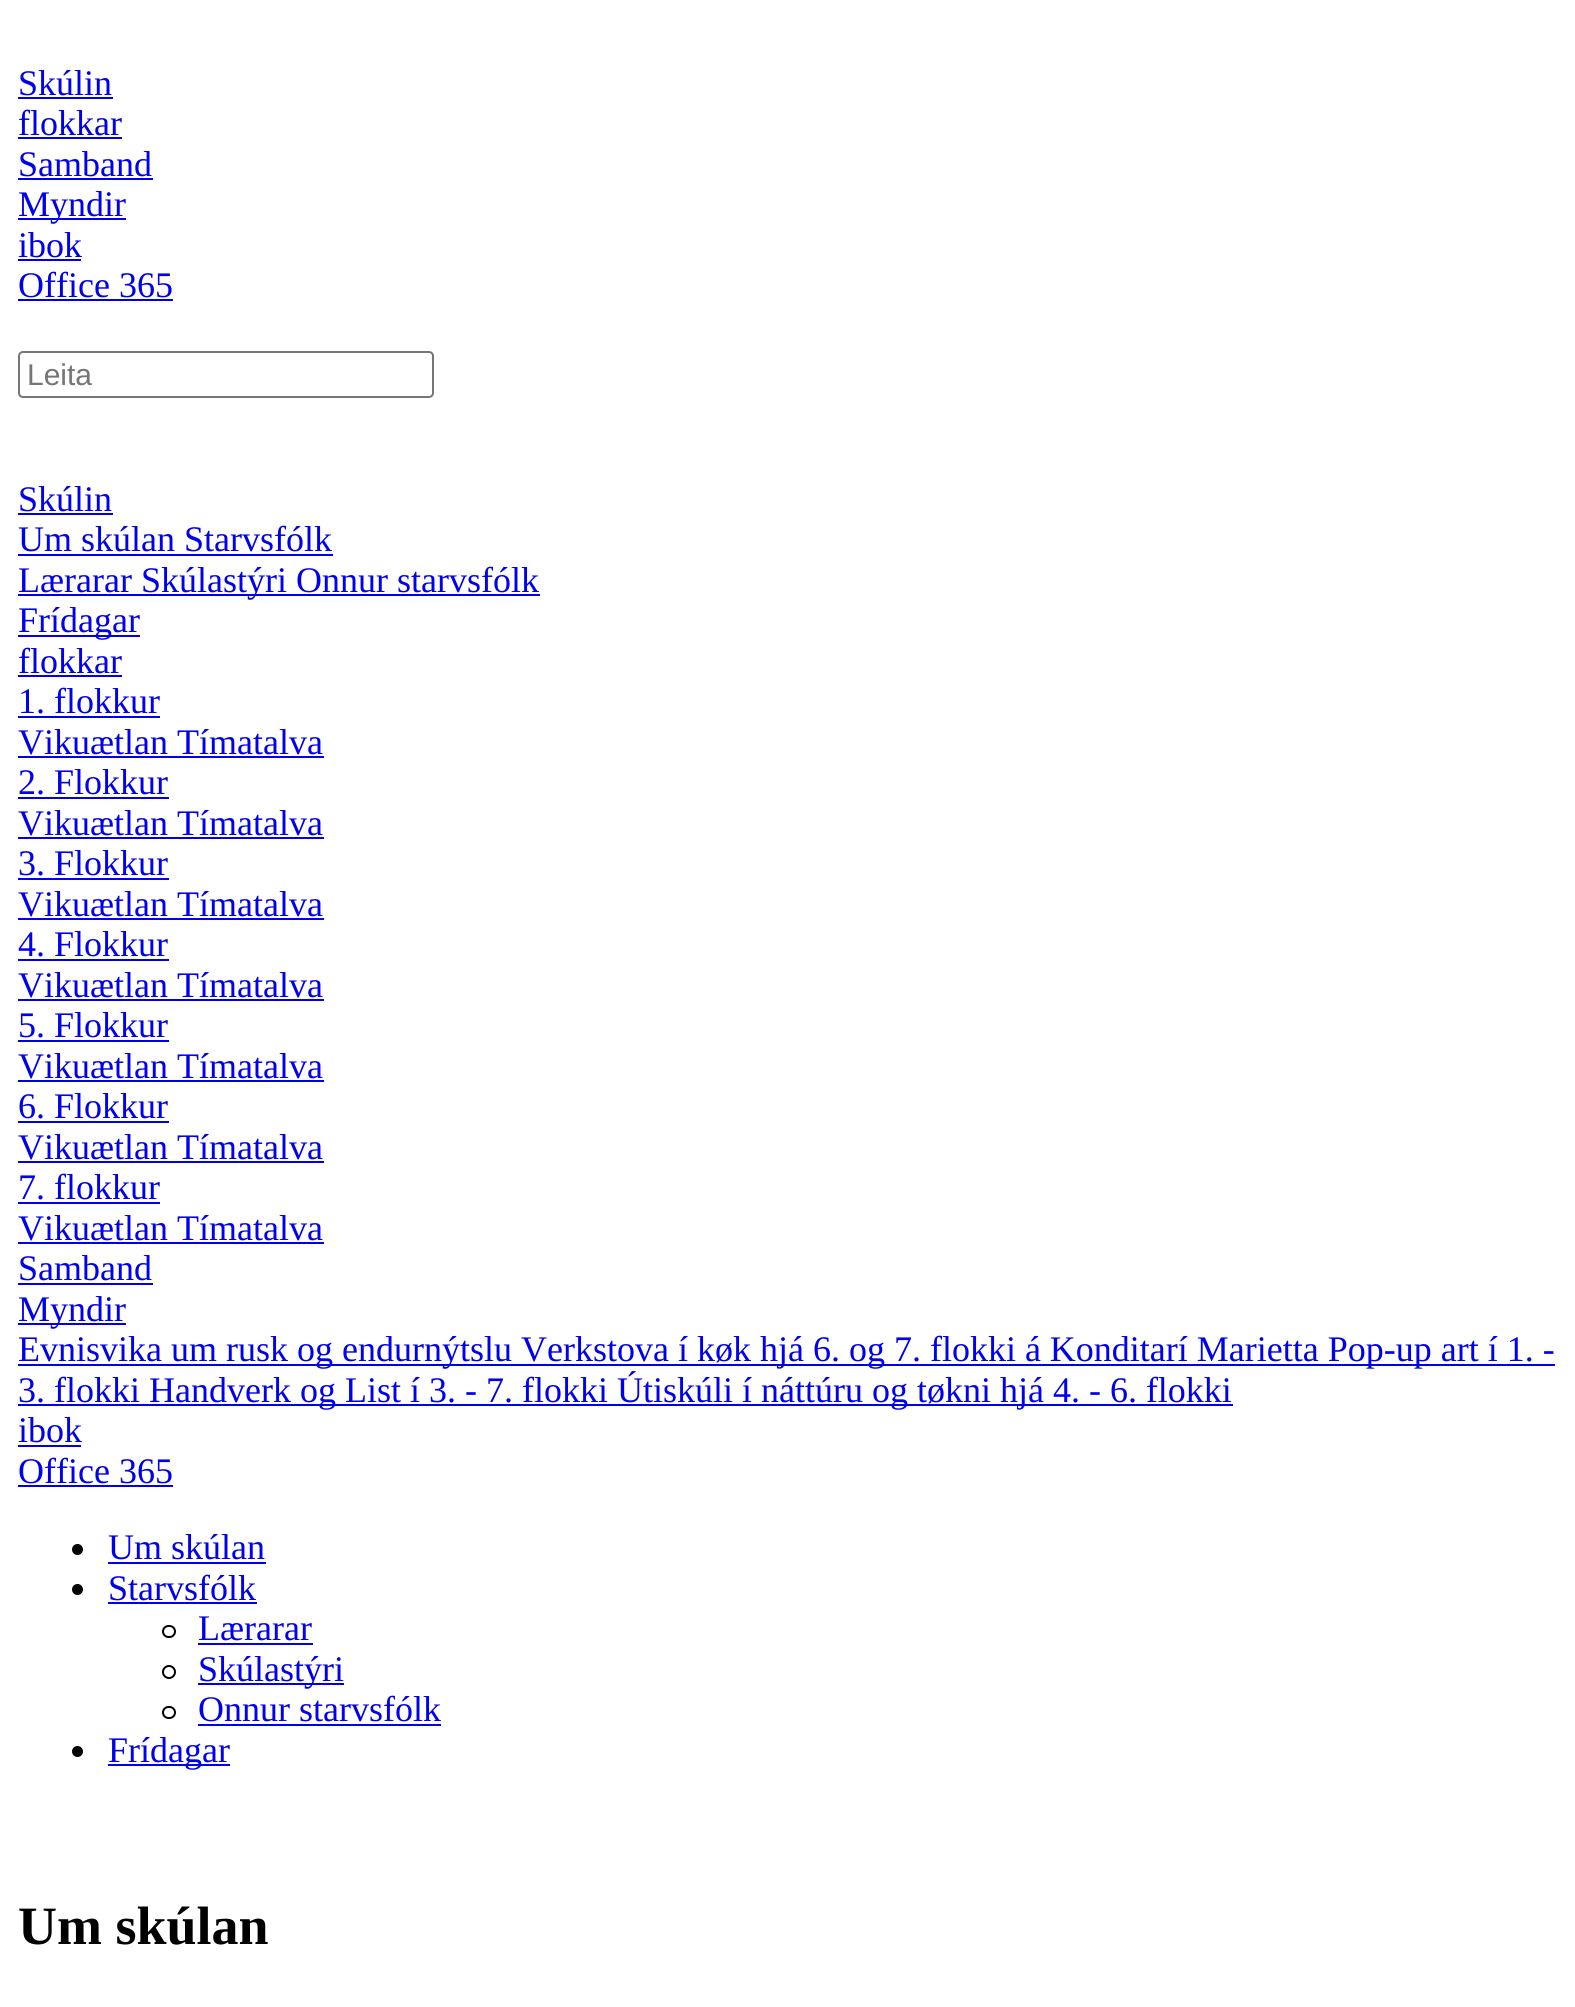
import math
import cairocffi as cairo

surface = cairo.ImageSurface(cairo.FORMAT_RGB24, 1575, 2007)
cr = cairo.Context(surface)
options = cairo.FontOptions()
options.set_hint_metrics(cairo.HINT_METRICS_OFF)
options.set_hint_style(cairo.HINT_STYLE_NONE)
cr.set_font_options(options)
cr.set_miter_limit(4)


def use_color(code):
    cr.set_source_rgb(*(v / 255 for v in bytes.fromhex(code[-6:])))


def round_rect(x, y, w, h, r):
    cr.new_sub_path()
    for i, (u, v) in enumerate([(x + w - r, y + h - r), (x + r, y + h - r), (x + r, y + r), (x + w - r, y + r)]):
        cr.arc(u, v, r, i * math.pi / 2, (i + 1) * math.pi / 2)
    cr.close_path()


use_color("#ffffff")
cr.paint()
cr.select_font_face("Liberation Serif")
cr.set_font_size(36)
use_color("#0000ee")
cr.move_to(18, 95)
cr.show_text("Skúlin")
cr.rectangle(18, 97, 95, 2)
cr.fill()
cr.move_to(18, 135)
cr.show_text("flokkar")
cr.rectangle(18, 137, 104, 2)
cr.fill()
cr.move_to(18, 176)
cr.show_text("Samband")
cr.rectangle(18, 178, 135, 2)
cr.fill()
cr.rectangle(18, 218, 108, 2)
cr.fill()
cr.move_to(18, 216)
cr.show_text("Myndir")
cr.move_to(18, 257)
cr.show_text("ibok")
cr.rectangle(18, 259, 63, 2)
cr.fill()
cr.move_to(18, 297)
cr.show_text("Office 365")
cr.rectangle(18, 299, 155, 2)
cr.fill()
round_rect(19, 352, 414, 45, 4)
use_color("#767676")
cr.stroke()
cr.select_font_face("Liberation Sans")
cr.set_font_size(30)
use_color("#757575")
cr.move_to(27, 385)
cr.show_text("Leita")
cr.select_font_face("Liberation Serif")
cr.set_font_size(36)
use_color("#0000ee")
cr.move_to(18, 511)
cr.show_text("Skúlin")
cr.rectangle(18, 513, 95, 2)
cr.fill()
cr.move_to(18, 551)
cr.show_text("Um skúlan Starvsfólk")
cr.rectangle(18, 554, 315, 2)
cr.fill()
cr.rectangle(18, 594, 522, 2)
cr.fill()
cr.move_to(18, 592)
cr.show_text("Lærarar Skúlastýri Onnur starvsfólk")
cr.rectangle(18, 635, 122, 2)
cr.fill()
cr.move_to(18, 632)
cr.show_text("Frídagar")
cr.move_to(18, 673)
cr.show_text("flokkar")
cr.rectangle(18, 675, 104, 2)
cr.fill()
cr.move_to(18, 713)
cr.show_text("1. flokkur")
cr.rectangle(18, 716, 142, 2)
cr.fill()
cr.move_to(18, 754)
cr.show_text("Vikuætlan Tímatalva")
cr.rectangle(18, 756, 306, 2)
cr.fill()
cr.move_to(18, 794)
cr.show_text("2. Flokkur")
cr.rectangle(18, 797, 151, 2)
cr.fill()
cr.move_to(18, 835)
cr.show_text("Vikuætlan Tímatalva")
cr.rectangle(18, 837, 306, 2)
cr.fill()
cr.move_to(18, 875)
cr.show_text("3. Flokkur")
cr.rectangle(18, 878, 151, 2)
cr.fill()
cr.move_to(18, 916)
cr.show_text("Vikuætlan Tímatalva")
cr.rectangle(18, 918, 306, 2)
cr.fill()
cr.move_to(18, 956)
cr.show_text("4. Flokkur")
cr.rectangle(18, 959, 151, 2)
cr.fill()
cr.move_to(18, 997)
cr.show_text("Vikuætlan Tímatalva")
cr.rectangle(18, 999, 306, 2)
cr.fill()
cr.move_to(18, 1037)
cr.show_text("5. Flokkur")
cr.rectangle(18, 1040, 151, 2)
cr.fill()
cr.move_to(18, 1078)
cr.show_text("Vikuætlan Tímatalva")
cr.rectangle(18, 1080, 306, 2)
cr.fill()
cr.move_to(18, 1118)
cr.show_text("6. Flokkur")
cr.rectangle(18, 1121, 151, 2)
cr.fill()
cr.move_to(18, 1159)
cr.show_text("Vikuætlan Tímatalva")
cr.rectangle(18, 1161, 306, 2)
cr.fill()
cr.move_to(18, 1199)
cr.show_text("7. flokkur")
cr.rectangle(18, 1202, 142, 2)
cr.fill()
cr.move_to(18, 1240)
cr.show_text("Vikuætlan Tímatalva")
cr.rectangle(18, 1242, 306, 2)
cr.fill()
cr.move_to(18, 1280)
cr.show_text("Samband")
cr.rectangle(18, 1283, 135, 2)
cr.fill()
cr.rectangle(18, 1323, 108, 2)
cr.fill()
cr.move_to(18, 1321)
cr.show_text("Myndir")
cr.rectangle(18, 1364, 1537, 2)
cr.fill()
cr.move_to(18, 1361)
cr.show_text("Evnisvika um rusk og endurnýtslu Verkstova í køk hjá 6. og 7. flokki á Konditarí Marietta Pop-up art í 1. -")
cr.rectangle(18, 1404, 1215, 2)
cr.fill()
cr.move_to(18, 1402)
cr.show_text("3. flokki Handverk og List í 3. - 7. flokki Útiskúli í náttúru og tøkni hjá 4. - 6. flokki")
cr.move_to(18, 1442)
cr.show_text("ibok")
cr.rectangle(18, 1445, 63, 2)
cr.fill()
cr.move_to(18, 1483)
cr.show_text("Office 365")
cr.rectangle(18, 1485, 155, 2)
cr.fill()
use_color("#000000")
cr.arc(77.5, 1549.5, 5.5, 0, 2 * math.pi)
cr.fill()
use_color("#0000ee")
cr.move_to(108, 1559)
cr.show_text("Um skúlan")
cr.rectangle(108, 1562, 158, 2)
cr.fill()
use_color("#000000")
cr.arc(77.5, 1589.5, 5.5, 0, 2 * math.pi)
cr.fill()
use_color("#0000ee")
cr.move_to(108, 1600)
cr.show_text("Starvsfólk")
cr.rectangle(108, 1602, 149, 2)
cr.fill()
round_rect(163, 1626, 12, 11, 5.5)
use_color("#000000")
cr.stroke()
use_color("#0000ee")
cr.move_to(198, 1640)
cr.show_text("Lærarar")
cr.rectangle(198, 1643, 115, 2)
cr.fill()
cr.arc(169, 1672, 6, 0, 2 * math.pi)
use_color("#000000")
cr.stroke()
use_color("#0000ee")
cr.rectangle(198, 1683, 146, 2)
cr.fill()
cr.move_to(198, 1681)
cr.show_text("Skúlastýri")
round_rect(163, 1707, 12, 11, 5.5)
use_color("#000000")
cr.stroke()
use_color("#0000ee")
cr.move_to(198, 1721)
cr.show_text("Onnur starvsfólk")
cr.rectangle(198, 1724, 243, 2)
cr.fill()
use_color("#000000")
cr.arc(77.5, 1751.5, 5.5, 0, 2 * math.pi)
cr.fill()
use_color("#0000ee")
cr.rectangle(108, 1764, 122, 2)
cr.fill()
cr.move_to(108, 1762)
cr.show_text("Frídagar")
cr.select_font_face("Liberation Serif", cairo.FONT_SLANT_NORMAL, cairo.FONT_WEIGHT_BOLD)
cr.set_font_size(54)
use_color("#000000")
cr.move_to(18, 1944)
cr.show_text("Um skúlan")
surface.write_to_png("result.png")
